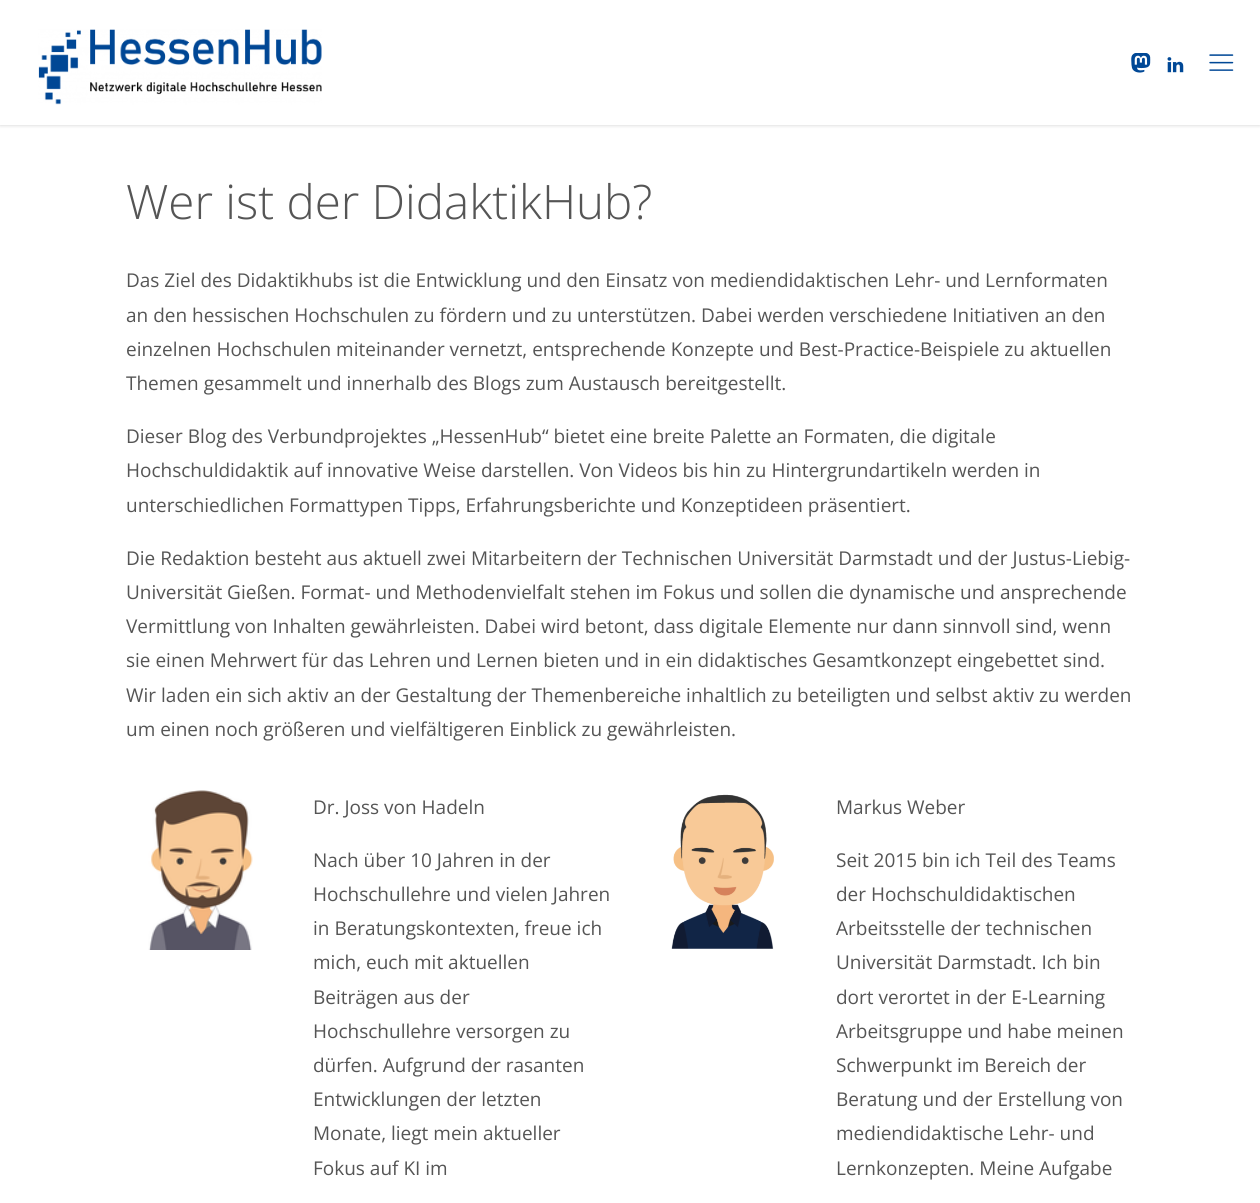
import math
import cairocffi as cairo

surface = cairo.ImageSurface(cairo.FORMAT_RGB24, 1260, 1203)
cr = cairo.Context(surface)
options = cairo.FontOptions()
options.set_hint_metrics(cairo.HINT_METRICS_OFF)
options.set_hint_style(cairo.HINT_STYLE_NONE)
cr.set_font_options(options)
cr.set_miter_limit(4)


def use_color(code):
    cr.set_source_rgb(*(v / 255 for v in bytes.fromhex(code[-6:])))


def round_rect(x, y, w, h, r):
    cr.new_sub_path()
    for i, (u, v) in enumerate([(x + w - r, y + h - r), (x + r, y + h - r), (x + r, y + r), (x + w - r, y + r)]):
        cr.arc(u, v, r, i * math.pi / 2, (i + 1) * math.pi / 2)
    cr.close_path()


def shadow(x, y, w, h, r, blur, alpha):
    cr.push_group_with_content(cairo.CONTENT_ALPHA)
    cr.set_operator(cairo.OPERATOR_SOURCE)
    for i in range(15, -16, -2):
        e = blur * i / 6
        if min(w, h) + 2 * e > 0:
            cr.set_source_rgba(0, 0, 0, alpha * math.erfc((i - 1) / 8.5) / 2)
            round_rect(x - e, y - e, w + 2 * e, h + 2 * e, max(0, min(r + e + blur * .6, min(w, h) / 2 + e)))
            cr.fill()
    cr.mask(cr.pop_group())


def picture(path, x, y, w, h):
    cr.save()
    cr.set_source_surface(cairo.ImageSurface.create_from_png(path), x, y)
    cr.rectangle(x, y, w, h)
    cr.fill()
    cr.restore()


use_color("#ffffff")
cr.paint()
use_color("#000000")
shadow(0, 0, 1260, 125, 0, 2, 0.2)
use_color("#ffffff")
cr.rectangle(0, 0, 1260, 125)
cr.fill()
picture("img1.png", 38, 29, 284, 76)
picture("img2.png", 1131, 53, 20, 20)
picture("img3.png", 1167, 57, 17, 16)
picture("img4.png", 1209, 54, 25, 17)
cr.select_font_face("Open Sans Light")
cr.set_font_size(47.5)
use_color("#555555")
cr.move_to(126, 219)
cr.show_text("Wer ist der DidaktikHub?")
cr.select_font_face("Open Sans")
cr.set_font_size(19)
cr.move_to(126, 287)
cr.show_text("Das Ziel des Didaktikhubs ist die Entwicklung und den Einsatz von mediendidaktischen Lehr- und Lernformaten")
cr.move_to(126, 322)
cr.show_text("an den hessischen Hochschulen zu fördern und zu unterstützen. Dabei werden verschiedene Initiativen an den")
cr.move_to(126, 356)
cr.show_text("einzelnen Hochschulen miteinander vernetzt, entsprechende Konzepte und Best-Practice-Beispiele zu aktuellen")
cr.move_to(126, 390)
cr.show_text("Themen gesammelt und innerhalb des Blogs zum Austausch bereitgestellt.")
cr.move_to(126, 443)
cr.show_text("Dieser Blog des Verbundprojektes „HessenHub“ bietet eine breite Palette an Formaten, die digitale")
cr.move_to(126, 477)
cr.show_text("Hochschuldidaktik auf innovative Weise darstellen. Von Videos bis hin zu Hintergrundartikeln werden in")
cr.move_to(126, 512)
cr.show_text("unterschiedlichen Formattypen Tipps, Erfahrungsberichte und Konzeptideen präsentiert.")
cr.move_to(126, 565)
cr.show_text("Die Redaktion besteht aus aktuell zwei Mitarbeitern der Technischen Universität Darmstadt und der Justus-Liebig-")
cr.move_to(126, 599)
cr.show_text("Universität Gießen. Format- und Methodenvielfalt stehen im Fokus und sollen die dynamische und ansprechende")
cr.move_to(126, 633)
cr.show_text("Vermittlung von Inhalten gewährleisten. Dabei wird betont, dass digitale Elemente nur dann sinnvoll sind, wenn")
cr.move_to(126, 667)
cr.show_text("sie einen Mehrwert für das Lehren und Lernen bieten und in ein didaktisches Gesamtkonzept eingebettet sind.")
cr.move_to(126, 702)
cr.show_text("Wir laden ein sich aktiv an der Gestaltung der Themenbereiche inhaltlich zu beteiligten und selbst aktiv zu werden")
cr.move_to(126, 736)
cr.show_text("um einen noch größeren und vielfältigeren Einblick zu gewährleisten.")
picture("img5.png", 148, 790, 105, 160)
cr.move_to(313, 814)
cr.show_text("Dr. Joss von Hadeln")
cr.move_to(313, 867)
cr.show_text("Nach über 10 Jahren in der")
cr.move_to(313, 901)
cr.show_text("Hochschullehre und vielen Jahren")
cr.move_to(313, 935)
cr.show_text("in Beratungskontexten, freue ich")
cr.move_to(313, 969)
cr.show_text("mich, euch mit aktuellen")
cr.move_to(313, 1004)
cr.show_text("Beiträgen aus der")
cr.move_to(313, 1038)
cr.show_text("Hochschullehre versorgen zu")
cr.move_to(313, 1072)
cr.show_text("dürfen. Aufgrund der rasanten")
cr.move_to(313, 1106)
cr.show_text("Entwicklungen der letzten")
cr.move_to(313, 1140)
cr.show_text("Monate, liegt mein aktueller")
cr.move_to(313, 1175)
cr.show_text("Fokus auf KI im")
picture("img6.png", 671, 794, 103, 155)
cr.move_to(836, 814)
cr.show_text("Markus Weber")
cr.move_to(836, 867)
cr.show_text("Seit 2015 bin ich Teil des Teams")
cr.move_to(836, 901)
cr.show_text("der Hochschuldidaktischen")
cr.move_to(836, 935)
cr.show_text("Arbeitsstelle der technischen")
cr.move_to(836, 969)
cr.show_text("Universität Darmstadt. Ich bin")
cr.move_to(836, 1004)
cr.show_text("dort verortet in der E-Learning")
cr.move_to(836, 1038)
cr.show_text("Arbeitsgruppe und habe meinen")
cr.move_to(836, 1072)
cr.show_text("Schwerpunkt im Bereich der")
cr.move_to(836, 1106)
cr.show_text("Beratung und der Erstellung von")
cr.move_to(836, 1140)
cr.show_text("mediendidaktische Lehr- und")
cr.move_to(836, 1175)
cr.show_text("Lernkonzepten. Meine Aufgabe")
surface.write_to_png("result.png")
